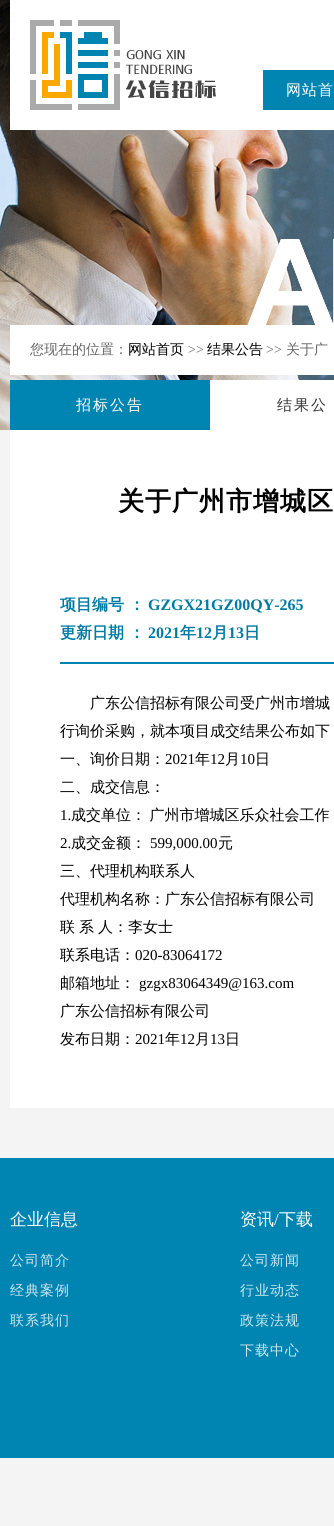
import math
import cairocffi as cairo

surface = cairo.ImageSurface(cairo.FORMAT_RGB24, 334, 1526)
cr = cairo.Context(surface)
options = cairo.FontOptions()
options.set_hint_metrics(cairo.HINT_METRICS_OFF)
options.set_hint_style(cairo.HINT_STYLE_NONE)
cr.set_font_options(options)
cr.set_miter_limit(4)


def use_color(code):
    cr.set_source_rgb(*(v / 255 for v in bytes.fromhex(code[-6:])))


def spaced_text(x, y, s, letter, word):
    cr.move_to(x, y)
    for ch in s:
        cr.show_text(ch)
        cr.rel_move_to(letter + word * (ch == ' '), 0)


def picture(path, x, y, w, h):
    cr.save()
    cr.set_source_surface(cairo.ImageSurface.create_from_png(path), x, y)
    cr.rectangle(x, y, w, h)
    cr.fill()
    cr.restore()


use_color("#f4f4f4")
cr.paint()
picture("img1.png", 0, 0, 334, 430)
use_color("#ffffff")
cr.rectangle(10, 0, 324, 130)
cr.fill()
picture("img2.png", 30, 20, 186, 90)
use_color("#0085b2")
cr.rectangle(263, 70, 71, 40)
cr.fill()
cr.select_font_face("WenQuanYi Zen Hei Medium")
cr.set_font_size(15)
use_color("#ffffff")
spaced_text(286, 95, "网站首", 1, 0)
cr.rectangle(10, 325, 324, 50)
cr.fill()
cr.set_font_size(14)
use_color("#666666")
cr.move_to(30, 354)
cr.show_text("您现在的位置：")
use_color("#000000")
cr.move_to(128, 354)
cr.show_text("网站首页")
cr.select_font_face("Liberation Serif")
use_color("#666666")
cr.move_to(188, 354)
cr.show_text(">>")
cr.select_font_face("WenQuanYi Zen Hei Medium")
use_color("#000000")
cr.move_to(207, 354)
cr.show_text("结果公告")
cr.select_font_face("Liberation Serif")
use_color("#666666")
cr.move_to(266, 354)
cr.show_text(">>")
cr.select_font_face("WenQuanYi Zen Hei Medium")
cr.move_to(286, 354)
cr.show_text("关于广")
use_color("#0085b2")
cr.rectangle(10, 380, 200, 50)
cr.fill()
use_color("#ffffff")
cr.rectangle(210, 380, 124, 50)
cr.fill()
cr.set_font_size(15)
spaced_text(76, 410, "招标公告", 2, 0)
use_color("#333333")
spaced_text(277, 410, "结果公", 2, 0)
use_color("#ffffff")
cr.rectangle(10, 430, 324, 678)
cr.fill()
cr.select_font_face("WenQuanYi Zen Hei", cairo.FONT_SLANT_NORMAL, cairo.FONT_WEIGHT_BOLD)
cr.set_font_size(26)
use_color("#000000")
spaced_text(118, 510, "关于广州市增城区", 1, 0)
use_color("#0085b2")
cr.rectangle(60, 662, 274, 2)
cr.fill()
cr.set_font_size(16)
use_color("#007ba4")
cr.move_to(60, 610)
cr.show_text("项目编号 ：")
cr.select_font_face("Liberation Serif", cairo.FONT_SLANT_NORMAL, cairo.FONT_WEIGHT_BOLD)
cr.move_to(148, 610)
cr.show_text("GZGX21GZ00QY-265")
cr.select_font_face("WenQuanYi Zen Hei", cairo.FONT_SLANT_NORMAL, cairo.FONT_WEIGHT_BOLD)
cr.move_to(60, 638)
cr.show_text("更新日期 ：")
cr.select_font_face("Liberation Serif", cairo.FONT_SLANT_NORMAL, cairo.FONT_WEIGHT_BOLD)
cr.move_to(148, 638)
cr.show_text("2021")
cr.select_font_face("WenQuanYi Zen Hei", cairo.FONT_SLANT_NORMAL, cairo.FONT_WEIGHT_BOLD)
cr.move_to(180, 638)
cr.show_text("年")
cr.select_font_face("Liberation Serif", cairo.FONT_SLANT_NORMAL, cairo.FONT_WEIGHT_BOLD)
cr.move_to(196, 638)
cr.show_text("12")
cr.select_font_face("WenQuanYi Zen Hei", cairo.FONT_SLANT_NORMAL, cairo.FONT_WEIGHT_BOLD)
cr.move_to(212, 638)
cr.show_text("月")
cr.select_font_face("Liberation Serif", cairo.FONT_SLANT_NORMAL, cairo.FONT_WEIGHT_BOLD)
cr.move_to(228, 638)
cr.show_text("13")
cr.select_font_face("WenQuanYi Zen Hei", cairo.FONT_SLANT_NORMAL, cairo.FONT_WEIGHT_BOLD)
cr.move_to(244, 638)
cr.show_text("日")
cr.select_font_face("WenQuanYi Zen Hei Medium")
cr.set_font_size(15)
use_color("#000000")
cr.move_to(90, 708)
cr.show_text("广东公信招标有限公司受广州市增城")
cr.move_to(60, 736)
cr.show_text("行询价采购，就本项目成交结果公布如下")
cr.move_to(60, 764)
cr.show_text("一、询价日期：")
cr.select_font_face("Liberation Serif")
cr.move_to(165, 764)
cr.show_text("2021")
cr.select_font_face("WenQuanYi Zen Hei Medium")
cr.move_to(195, 764)
cr.show_text("年")
cr.select_font_face("Liberation Serif")
cr.move_to(210, 764)
cr.show_text("12")
cr.select_font_face("WenQuanYi Zen Hei Medium")
cr.move_to(225, 764)
cr.show_text("月")
cr.select_font_face("Liberation Serif")
cr.move_to(240, 764)
cr.show_text("10")
cr.select_font_face("WenQuanYi Zen Hei Medium")
cr.move_to(255, 764)
cr.show_text("日")
cr.move_to(60, 792)
cr.show_text("二、成交信息：")
cr.select_font_face("Liberation Serif")
cr.move_to(60, 820)
cr.show_text("1.")
cr.select_font_face("WenQuanYi Zen Hei Medium")
spaced_text(71, 820, "成交单位： 广州市增城区乐众社会工作", 0, -1)
cr.select_font_face("Liberation Serif")
cr.move_to(60, 848)
cr.show_text("2.")
cr.select_font_face("WenQuanYi Zen Hei Medium")
cr.move_to(71, 848)
cr.show_text("成交金额：")
cr.select_font_face("Liberation Serif")
cr.move_to(150, 848)
cr.show_text("599,000.00")
cr.select_font_face("WenQuanYi Zen Hei Medium")
cr.move_to(218, 848)
cr.show_text("元")
cr.move_to(60, 876)
cr.show_text("三、代理机构联系人")
cr.move_to(60, 904)
cr.show_text("代理机构名称：广东公信招标有限公司")
cr.move_to(60, 932)
cr.show_text("联")
cr.move_to(79, 932)
cr.show_text("系")
cr.move_to(98, 932)
cr.show_text("人：李女士")
cr.move_to(60, 960)
cr.show_text("联系电话：")
cr.select_font_face("Liberation Serif")
cr.move_to(135, 960)
cr.show_text("020-83064172")
cr.select_font_face("WenQuanYi Zen Hei Medium")
cr.move_to(60, 988)
cr.show_text("邮箱地址：")
cr.select_font_face("Liberation Serif")
cr.move_to(139, 988)
cr.show_text("gzgx83064349@163.com")
cr.select_font_face("WenQuanYi Zen Hei Medium")
cr.move_to(60, 1016)
cr.show_text("广东公信招标有限公司")
cr.move_to(60, 1044)
cr.show_text("发布日期：")
cr.select_font_face("Liberation Serif")
cr.move_to(135, 1044)
cr.show_text("2021")
cr.select_font_face("WenQuanYi Zen Hei Medium")
cr.move_to(165, 1044)
cr.show_text("年")
cr.select_font_face("Liberation Serif")
cr.move_to(180, 1044)
cr.show_text("12")
cr.select_font_face("WenQuanYi Zen Hei Medium")
cr.move_to(195, 1044)
cr.show_text("月")
cr.select_font_face("Liberation Serif")
cr.move_to(210, 1044)
cr.show_text("13")
cr.select_font_face("WenQuanYi Zen Hei Medium")
cr.move_to(225, 1044)
cr.show_text("日")
use_color("#0085b2")
cr.rectangle(0, 1158, 334, 300)
cr.fill()
cr.set_font_size(17)
use_color("#ffffff")
cr.move_to(10, 1225)
cr.show_text("企业信息")
cr.set_font_size(14)
use_color("#cce7f0")
spaced_text(10, 1265, "公司简介", 1, 0)
spaced_text(10, 1295, "经典案例", 1, 0)
spaced_text(10, 1325, "联系我们", 1, 0)
cr.set_font_size(17)
use_color("#ffffff")
cr.move_to(240, 1225)
cr.show_text("资讯")
cr.select_font_face("Liberation Serif")
cr.move_to(274, 1225)
cr.show_text("/")
cr.select_font_face("WenQuanYi Zen Hei Medium")
cr.move_to(279, 1225)
cr.show_text("下载")
cr.set_font_size(14)
use_color("#cce7f0")
spaced_text(240, 1265, "公司新闻", 1, 0)
spaced_text(240, 1295, "行业动态", 1, 0)
spaced_text(240, 1325, "政策法规", 1, 0)
spaced_text(240, 1355, "下载中心", 1, 0)
surface.write_to_png("result.png")
